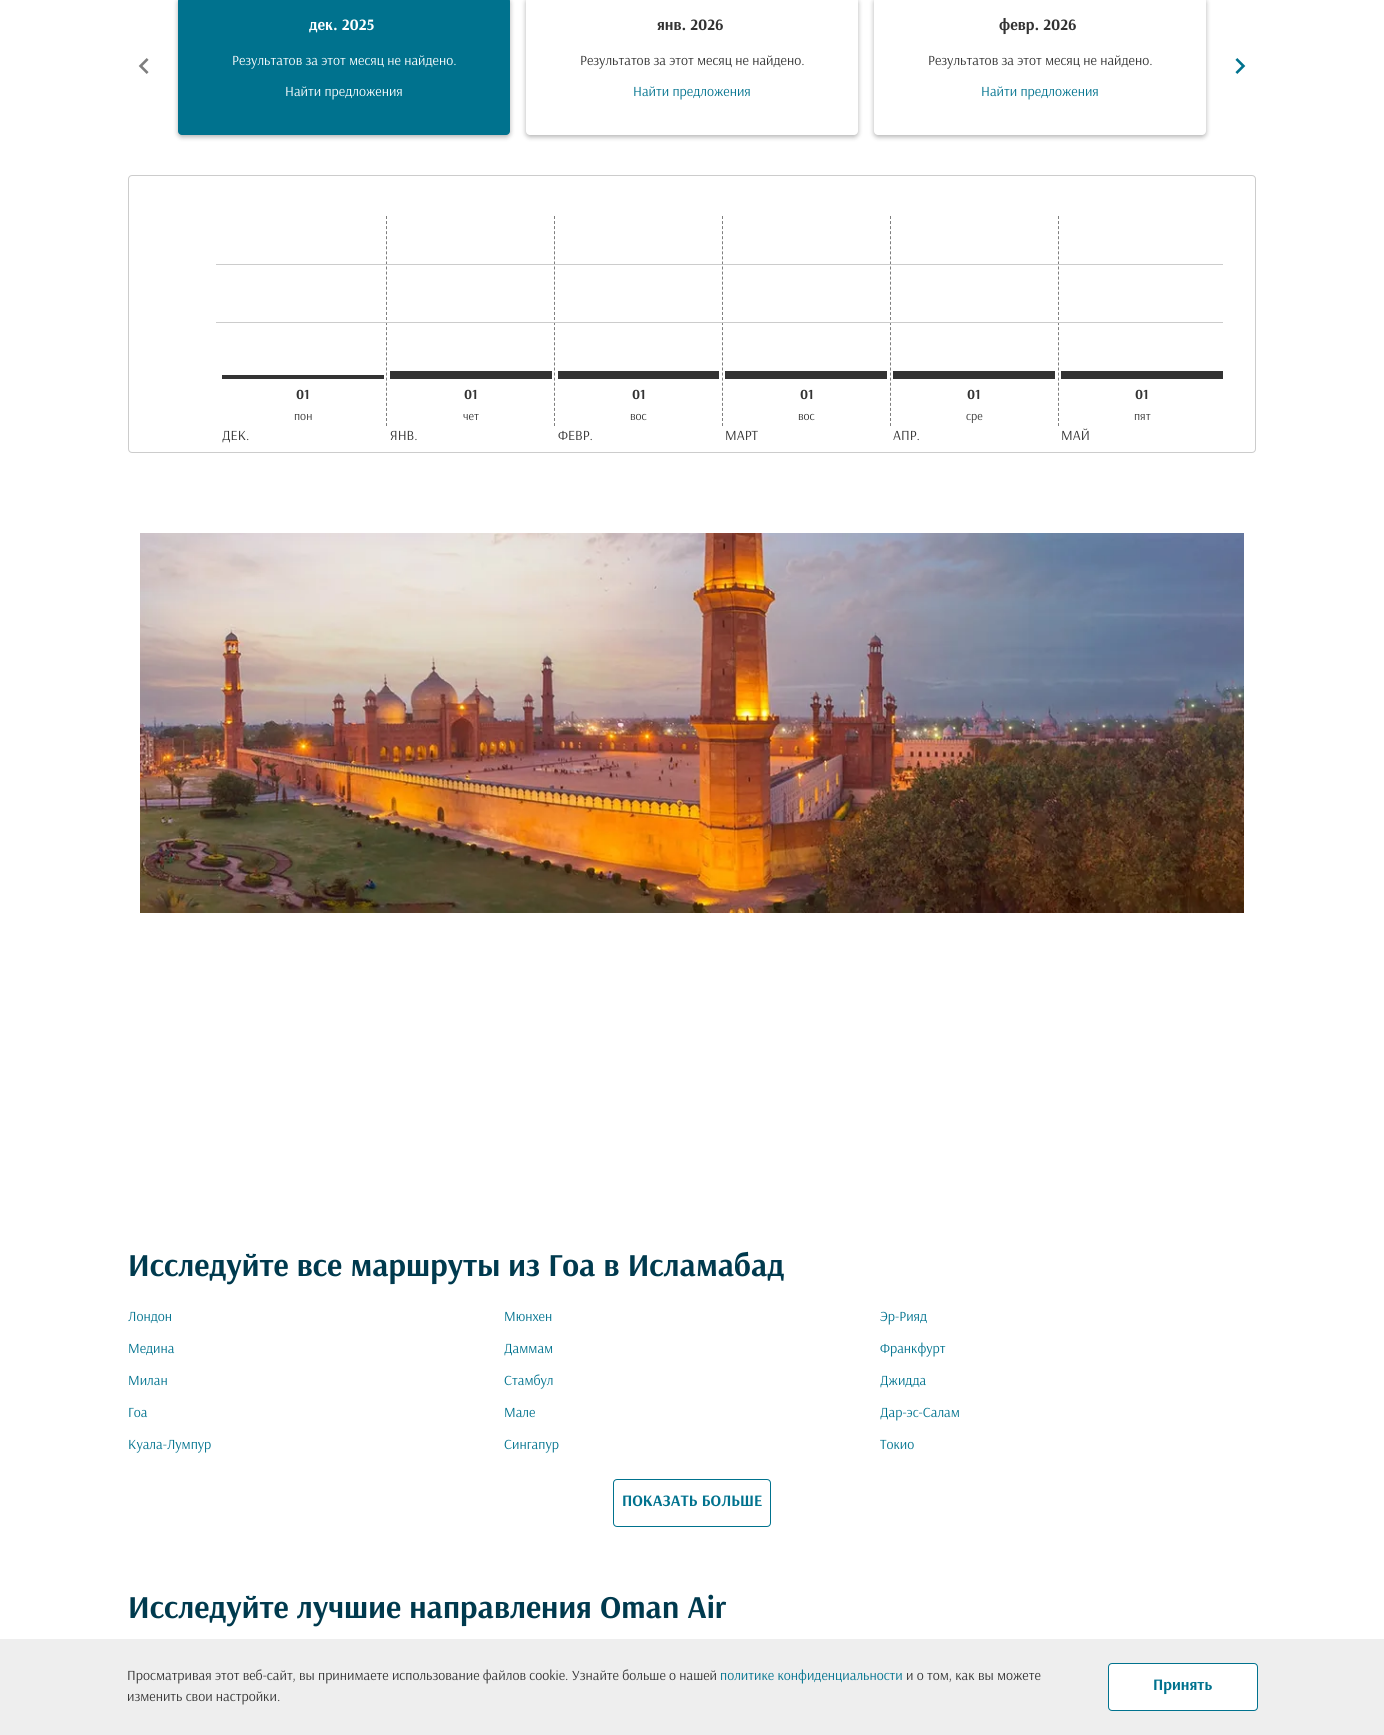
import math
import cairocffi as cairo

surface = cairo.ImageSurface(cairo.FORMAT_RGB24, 1384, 1735)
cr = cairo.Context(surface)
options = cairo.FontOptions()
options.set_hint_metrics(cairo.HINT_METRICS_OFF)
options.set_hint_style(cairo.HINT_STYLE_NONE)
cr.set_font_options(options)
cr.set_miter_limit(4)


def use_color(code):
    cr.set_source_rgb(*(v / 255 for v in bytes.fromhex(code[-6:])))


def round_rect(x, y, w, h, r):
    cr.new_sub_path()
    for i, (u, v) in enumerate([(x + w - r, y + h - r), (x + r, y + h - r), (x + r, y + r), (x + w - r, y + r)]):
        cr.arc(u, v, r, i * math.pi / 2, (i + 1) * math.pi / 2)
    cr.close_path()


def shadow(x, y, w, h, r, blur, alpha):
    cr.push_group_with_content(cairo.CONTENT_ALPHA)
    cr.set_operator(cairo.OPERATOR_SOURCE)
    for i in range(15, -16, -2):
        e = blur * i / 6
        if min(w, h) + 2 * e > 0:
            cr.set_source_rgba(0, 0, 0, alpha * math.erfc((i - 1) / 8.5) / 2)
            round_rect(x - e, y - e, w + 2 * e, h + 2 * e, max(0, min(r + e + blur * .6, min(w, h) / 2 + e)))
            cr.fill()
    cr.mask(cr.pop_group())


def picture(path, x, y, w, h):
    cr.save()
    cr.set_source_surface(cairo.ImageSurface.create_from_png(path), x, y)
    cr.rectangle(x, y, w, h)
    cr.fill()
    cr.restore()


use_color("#ffffff")
cr.paint()
picture("img1.png", 138, 58, 11, 16)
use_color("#000000")
shadow(178, -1, 332, 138, 4, 2.5, 0.3)
use_color("#00728e")
round_rect(178, -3, 332, 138, 4)
cr.fill()
cr.select_font_face("Arsenal", cairo.FONT_SLANT_NORMAL, cairo.FONT_WEIGHT_BOLD)
cr.set_font_size(16)
use_color("#ffffff")
cr.move_to(309, 30)
cr.show_text("дек. 2025")
cr.select_font_face("Arsenal")
cr.set_font_size(14)
cr.move_to(232, 65)
cr.show_text("Результатов за этот месяц не найдено.")
cr.move_to(285, 96)
cr.show_text("Найти предложения")
use_color("#000000")
shadow(526, -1, 332, 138, 4, 2.5, 0.3)
use_color("#ffffff")
round_rect(526, -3, 332, 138, 4)
cr.fill()
cr.select_font_face("Arsenal", cairo.FONT_SLANT_NORMAL, cairo.FONT_WEIGHT_BOLD)
cr.set_font_size(16)
use_color("#333333")
cr.move_to(657, 30)
cr.show_text("янв. 2026")
cr.select_font_face("Arsenal")
cr.set_font_size(14)
cr.move_to(580, 65)
cr.show_text("Результатов за этот месяц не найдено.")
use_color("#00728e")
cr.move_to(633, 96)
cr.show_text("Найти предложения")
use_color("#000000")
shadow(874, -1, 332, 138, 4, 2.5, 0.3)
use_color("#ffffff")
round_rect(874, -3, 332, 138, 4)
cr.fill()
cr.select_font_face("Arsenal", cairo.FONT_SLANT_NORMAL, cairo.FONT_WEIGHT_BOLD)
cr.set_font_size(16)
use_color("#333333")
cr.move_to(999, 30)
cr.show_text("февр. 2026")
cr.select_font_face("Arsenal")
cr.set_font_size(14)
cr.move_to(928, 65)
cr.show_text("Результатов за этот месяц не найдено.")
use_color("#00728e")
cr.move_to(981, 96)
cr.show_text("Найти предложения")
picture("img2.png", 1235, 58, 11, 16)
round_rect(128.5, 175.5, 1127, 277, 3.5)
use_color("#cccccc")
cr.set_line_width(1)
cr.stroke()
cr.new_path()
cr.move_to(386.5, 216)
cr.line_to(386.5, 426)
use_color("#7e7e7e")
cr.set_dash([3, 2.05])
cr.stroke()
cr.new_path()
cr.move_to(554.5, 216)
cr.line_to(554.5, 426)
cr.stroke()
cr.new_path()
cr.move_to(722.5, 216)
cr.line_to(722.5, 426)
cr.stroke()
cr.new_path()
cr.move_to(890.5, 216)
cr.line_to(890.5, 426)
cr.stroke()
cr.new_path()
cr.move_to(1058.5, 216)
cr.line_to(1058.5, 426)
cr.stroke()
use_color("#cccccc")
cr.rectangle(216, 264, 1007, 1)
cr.fill()
cr.rectangle(216, 322, 1007, 1)
cr.fill()
use_color("#333333")
cr.rectangle(222, 375, 162, 4)
cr.fill()
cr.select_font_face("Arsenal", cairo.FONT_SLANT_NORMAL, cairo.FONT_WEIGHT_BOLD)
cr.move_to(296, 399)
cr.show_text("01")
cr.select_font_face("Arsenal")
cr.set_font_size(12)
cr.move_to(294, 420)
cr.show_text("пон")
cr.set_font_size(14)
cr.move_to(222, 440)
cr.show_text("ДЕК.")
cr.rectangle(390, 371, 162, 8)
cr.fill()
cr.select_font_face("Arsenal", cairo.FONT_SLANT_NORMAL, cairo.FONT_WEIGHT_BOLD)
cr.move_to(464, 399)
cr.show_text("01")
cr.select_font_face("Arsenal")
cr.set_font_size(12)
cr.move_to(463, 420)
cr.show_text("чет")
cr.set_font_size(14)
cr.move_to(390, 440)
cr.show_text("ЯНВ.")
cr.rectangle(558, 371, 161, 8)
cr.fill()
cr.select_font_face("Arsenal", cairo.FONT_SLANT_NORMAL, cairo.FONT_WEIGHT_BOLD)
cr.move_to(632, 399)
cr.show_text("01")
cr.select_font_face("Arsenal")
cr.set_font_size(12)
cr.move_to(630, 420)
cr.show_text("вос")
cr.set_font_size(14)
cr.move_to(558, 440)
cr.show_text("ФЕВР.")
cr.rectangle(725, 371, 162, 8)
cr.fill()
cr.select_font_face("Arsenal", cairo.FONT_SLANT_NORMAL, cairo.FONT_WEIGHT_BOLD)
cr.move_to(800, 399)
cr.show_text("01")
cr.select_font_face("Arsenal")
cr.set_font_size(12)
cr.move_to(798, 420)
cr.show_text("вос")
cr.set_font_size(14)
cr.move_to(725, 440)
cr.show_text("МАРТ")
cr.rectangle(893, 371, 162, 8)
cr.fill()
cr.select_font_face("Arsenal", cairo.FONT_SLANT_NORMAL, cairo.FONT_WEIGHT_BOLD)
cr.move_to(967, 399)
cr.show_text("01")
cr.select_font_face("Arsenal")
cr.set_font_size(12)
cr.move_to(966, 420)
cr.show_text("сре")
cr.set_font_size(14)
cr.move_to(893, 440)
cr.show_text("АПР.")
cr.rectangle(1061, 371, 162, 8)
cr.fill()
cr.select_font_face("Arsenal", cairo.FONT_SLANT_NORMAL, cairo.FONT_WEIGHT_BOLD)
cr.move_to(1135, 399)
cr.show_text("01")
cr.select_font_face("Arsenal")
cr.set_font_size(12)
cr.move_to(1134, 420)
cr.show_text("пят")
cr.set_font_size(14)
cr.move_to(1061, 440)
cr.show_text("МАЙ")
picture("img3.png", 140, 533, 1104, 380)
cr.select_font_face("Arsenal", cairo.FONT_SLANT_NORMAL, cairo.FONT_WEIGHT_BOLD)
cr.set_font_size(32)
use_color("#003a4e")
cr.move_to(128, 1276)
cr.show_text("Исследуйте все маршруты из Гоа в Исламабад")
cr.select_font_face("Arsenal")
cr.set_font_size(14)
use_color("#00728e")
cr.move_to(128, 1321)
cr.show_text("Лондон")
cr.move_to(504, 1321)
cr.show_text("Мюнхен")
cr.move_to(880, 1321)
cr.show_text("Эр-Рияд")
cr.move_to(128, 1353)
cr.show_text("Медина")
cr.move_to(504, 1353)
cr.show_text("Даммам")
cr.move_to(880, 1353)
cr.show_text("Франкфурт")
cr.move_to(128, 1385)
cr.show_text("Милан")
cr.move_to(504, 1385)
cr.show_text("Стамбул")
cr.move_to(880, 1385)
cr.show_text("Джидда")
cr.move_to(128, 1417)
cr.show_text("Гоа")
cr.move_to(504, 1417)
cr.show_text("Мале")
cr.move_to(880, 1417)
cr.show_text("Дар-эс-Салам")
cr.move_to(128, 1449)
cr.show_text("Куала-Лумпур")
cr.move_to(504, 1449)
cr.show_text("Сингапур")
cr.move_to(880, 1449)
cr.show_text("Токио")
round_rect(613.5, 1479.5, 157, 47, 3.5)
cr.set_dash([])
cr.stroke()
cr.select_font_face("Arsenal", cairo.FONT_SLANT_NORMAL, cairo.FONT_WEIGHT_BOLD)
cr.set_font_size(16)
cr.move_to(622, 1506)
cr.show_text("ПОКАЗАТЬ БОЛЬШЕ")
cr.set_font_size(32)
use_color("#003a4e")
cr.move_to(128, 1618)
cr.show_text("Исследуйте лучшие направления Oman Air")
use_color("#eeeeee")
cr.rectangle(0, 1639, 1384, 96)
cr.fill()
cr.select_font_face("Arsenal")
cr.set_font_size(14)
use_color("#333333")
cr.move_to(127, 1680)
cr.show_text("Просматривая этот веб-сайт, вы принимаете использование файлов cookie. Узнайте больше о нашей")
use_color("#00728e")
cr.move_to(720, 1680)
cr.show_text("политике конфиденциальности")
use_color("#333333")
cr.move_to(906, 1680)
cr.show_text("и о том, как вы можете")
cr.move_to(127, 1701)
cr.show_text("изменить свои настройки.")
use_color("#ffffff")
round_rect(1108.5, 1663.5, 149, 47, 3.5)
cr.fill_preserve()
use_color("#00728e")
cr.stroke()
cr.select_font_face("Arsenal", cairo.FONT_SLANT_NORMAL, cairo.FONT_WEIGHT_BOLD)
cr.set_font_size(16)
cr.move_to(1153, 1690)
cr.show_text("Принять")
surface.write_to_png("result.png")
